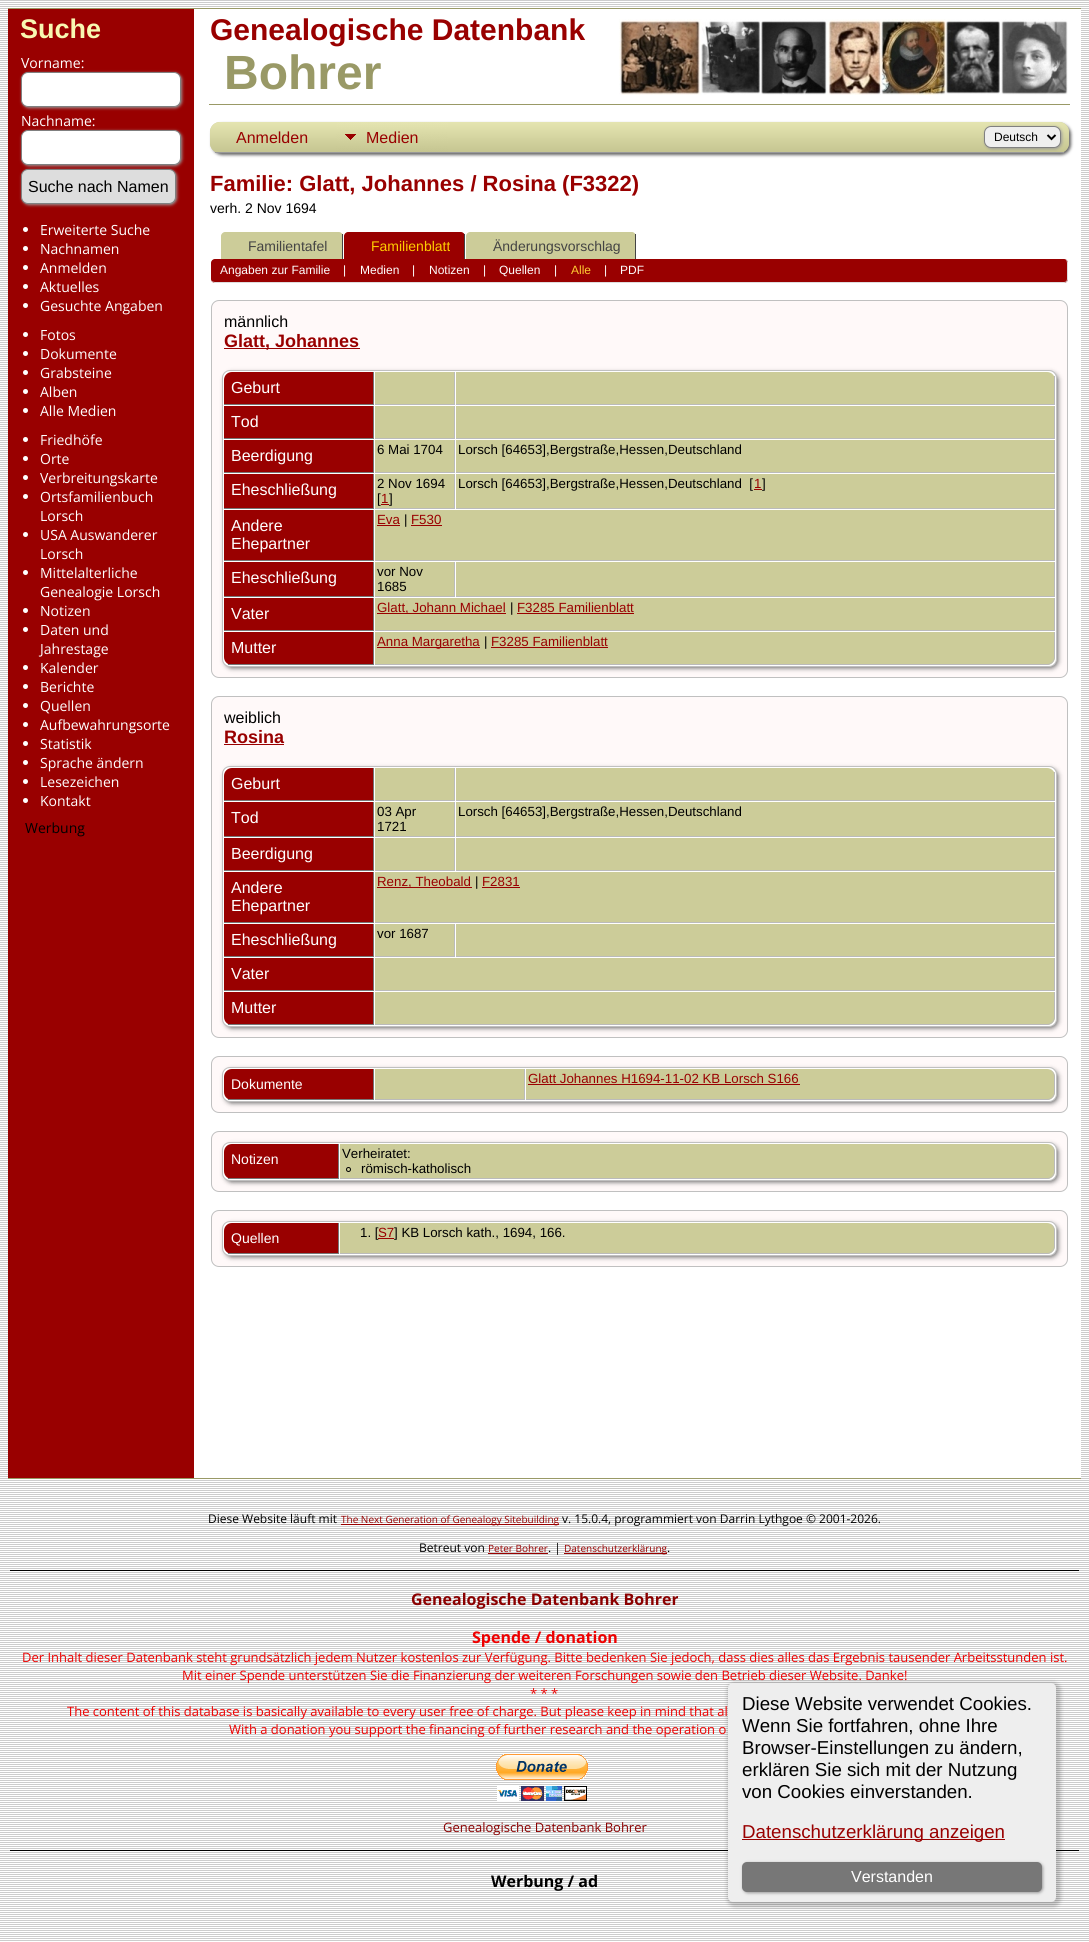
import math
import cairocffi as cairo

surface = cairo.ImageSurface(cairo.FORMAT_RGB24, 1089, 1942)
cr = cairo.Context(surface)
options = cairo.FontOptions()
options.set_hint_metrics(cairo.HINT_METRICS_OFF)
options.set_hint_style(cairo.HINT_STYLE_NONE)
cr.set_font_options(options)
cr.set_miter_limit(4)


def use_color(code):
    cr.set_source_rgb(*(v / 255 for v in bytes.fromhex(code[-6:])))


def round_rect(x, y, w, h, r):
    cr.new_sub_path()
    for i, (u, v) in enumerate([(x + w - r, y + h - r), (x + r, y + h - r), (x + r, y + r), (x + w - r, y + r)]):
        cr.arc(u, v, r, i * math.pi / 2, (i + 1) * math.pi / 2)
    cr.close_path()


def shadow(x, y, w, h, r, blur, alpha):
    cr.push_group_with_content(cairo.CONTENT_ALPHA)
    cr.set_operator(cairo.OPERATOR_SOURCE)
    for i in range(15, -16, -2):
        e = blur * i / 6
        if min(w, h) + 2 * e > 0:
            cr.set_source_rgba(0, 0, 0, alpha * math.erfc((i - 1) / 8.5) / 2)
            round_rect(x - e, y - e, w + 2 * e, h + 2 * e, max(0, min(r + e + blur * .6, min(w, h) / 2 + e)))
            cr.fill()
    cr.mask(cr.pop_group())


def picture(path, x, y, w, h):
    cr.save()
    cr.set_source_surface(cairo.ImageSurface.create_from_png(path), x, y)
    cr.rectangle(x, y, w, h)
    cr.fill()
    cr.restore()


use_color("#ffffff")
cr.paint()
picture("img1.png", 0, 0, 1089, 1941)
use_color("#ffffff")
cr.rectangle(194, 10, 887, 1467)
cr.fill()
use_color("#999966")
cr.rectangle(8, 8, 1073, 1)
cr.fill()
use_color("#990000")
cr.rectangle(8, 9, 186, 1469)
cr.fill()
cr.select_font_face("Liberation Sans", cairo.FONT_SLANT_NORMAL, cairo.FONT_WEIGHT_BOLD)
cr.set_font_size(27)
use_color("#f8f8b2")
cr.move_to(20, 38)
cr.show_text("Suche")
cr.select_font_face("Open Sans")
cr.set_font_size(14)
use_color("#ffffff")
cr.move_to(21, 68)
cr.show_text("Vorname:")
use_color("#999999")
shadow(22, 73, 160, 35, 7, 1.5, 1)
use_color("#ffffff")
round_rect(21.5, 72.5, 159, 34, 6.5)
cr.fill_preserve()
use_color("#808080")
cr.set_line_width(1)
cr.stroke()
use_color("#ffffff")
cr.move_to(21, 126)
cr.show_text("Nachname:")
use_color("#999999")
shadow(22, 131, 160, 35, 7, 1.5, 1)
use_color("#ffffff")
round_rect(21.5, 130.5, 159, 34, 6.5)
cr.fill_preserve()
use_color("#808080")
cr.stroke()
use_color("#999999")
shadow(22, 170, 155, 35, 7, 1.5, 1)
use_color("#dddddd")
round_rect(21.5, 169.5, 154, 34, 6.5)
cr.fill_preserve()
use_color("#808080")
cr.stroke()
cr.select_font_face("Liberation Sans")
cr.set_font_size(16)
use_color("#000000")
cr.move_to(28, 192)
cr.show_text("Suche nach Namen")
use_color("#ffffff")
cr.new_path()
cr.arc(25.5, 229.5, 2.5, 0, 2 * math.pi)
cr.fill()
cr.select_font_face("Open Sans")
cr.set_font_size(14)
cr.move_to(40, 235)
cr.show_text("Erweiterte Suche")
cr.new_path()
cr.arc(25.5, 248.5, 2.5, 0, 2 * math.pi)
cr.fill()
cr.move_to(40, 254)
cr.show_text("Nachnamen")
cr.new_path()
cr.arc(25.5, 267.5, 2.5, 0, 2 * math.pi)
cr.fill()
cr.move_to(40, 273)
cr.show_text("Anmelden")
cr.new_path()
cr.arc(25.5, 286.5, 2.5, 0, 2 * math.pi)
cr.fill()
cr.move_to(40, 292)
cr.show_text("Aktuelles")
cr.new_path()
cr.arc(25.5, 305.5, 2.5, 0, 2 * math.pi)
cr.fill()
cr.move_to(40, 311)
cr.show_text("Gesuchte Angaben")
cr.new_path()
cr.arc(25.5, 334.5, 2.5, 0, 2 * math.pi)
cr.fill()
cr.move_to(40, 340)
cr.show_text("Fotos")
cr.new_path()
cr.arc(25.5, 353.5, 2.5, 0, 2 * math.pi)
cr.fill()
cr.move_to(40, 359)
cr.show_text("Dokumente")
cr.new_path()
cr.arc(25.5, 372.5, 2.5, 0, 2 * math.pi)
cr.fill()
cr.move_to(40, 378)
cr.show_text("Grabsteine")
cr.new_path()
cr.arc(25.5, 391.5, 2.5, 0, 2 * math.pi)
cr.fill()
cr.move_to(40, 397)
cr.show_text("Alben")
cr.new_path()
cr.arc(25.5, 410.5, 2.5, 0, 2 * math.pi)
cr.fill()
cr.move_to(40, 416)
cr.show_text("Alle Medien")
cr.new_path()
cr.arc(25.5, 439.5, 2.5, 0, 2 * math.pi)
cr.fill()
cr.move_to(40, 445)
cr.show_text("Friedhöfe")
cr.new_path()
cr.arc(25.5, 458.5, 2.5, 0, 2 * math.pi)
cr.fill()
cr.move_to(40, 464)
cr.show_text("Orte")
cr.new_path()
cr.arc(25.5, 477.5, 2.5, 0, 2 * math.pi)
cr.fill()
cr.move_to(40, 483)
cr.show_text("Verbreitungskarte")
cr.new_path()
cr.arc(25.5, 496.5, 2.5, 0, 2 * math.pi)
cr.fill()
cr.move_to(40, 502)
cr.show_text("Ortsfamilienbuch")
cr.move_to(40, 521)
cr.show_text("Lorsch")
cr.new_path()
cr.arc(25.5, 534.5, 2.5, 0, 2 * math.pi)
cr.fill()
cr.move_to(40, 540)
cr.show_text("USA Auswanderer")
cr.move_to(40, 559)
cr.show_text("Lorsch")
cr.new_path()
cr.arc(25.5, 572.5, 2.5, 0, 2 * math.pi)
cr.fill()
cr.move_to(40, 578)
cr.show_text("Mittelalterliche")
cr.move_to(40, 597)
cr.show_text("Genealogie Lorsch")
cr.new_path()
cr.arc(25.5, 610.5, 2.5, 0, 2 * math.pi)
cr.fill()
cr.move_to(40, 616)
cr.show_text("Notizen")
cr.new_path()
cr.arc(25.5, 629.5, 2.5, 0, 2 * math.pi)
cr.fill()
cr.move_to(40, 635)
cr.show_text("Daten und")
cr.move_to(40, 654)
cr.show_text("Jahrestage")
cr.new_path()
cr.arc(25.5, 667.5, 2.5, 0, 2 * math.pi)
cr.fill()
cr.move_to(40, 673)
cr.show_text("Kalender")
cr.new_path()
cr.arc(25.5, 686.5, 2.5, 0, 2 * math.pi)
cr.fill()
cr.move_to(40, 692)
cr.show_text("Berichte")
cr.new_path()
cr.arc(25.5, 705.5, 2.5, 0, 2 * math.pi)
cr.fill()
cr.move_to(40, 711)
cr.show_text("Quellen")
cr.new_path()
cr.arc(25.5, 724.5, 2.5, 0, 2 * math.pi)
cr.fill()
cr.move_to(40, 730)
cr.show_text("Aufbewahrungsorte")
cr.new_path()
cr.arc(25.5, 743.5, 2.5, 0, 2 * math.pi)
cr.fill()
cr.move_to(40, 749)
cr.show_text("Statistik")
cr.new_path()
cr.arc(25.5, 762.5, 2.5, 0, 2 * math.pi)
cr.fill()
cr.move_to(40, 768)
cr.show_text("Sprache ändern")
cr.new_path()
cr.arc(25.5, 781.5, 2.5, 0, 2 * math.pi)
cr.fill()
cr.move_to(40, 787)
cr.show_text("Lesezeichen")
cr.new_path()
cr.arc(25.5, 800.5, 2.5, 0, 2 * math.pi)
cr.fill()
cr.move_to(40, 806)
cr.show_text("Kontakt")
use_color("#000000")
cr.move_to(25, 833)
cr.show_text("Werbung")
cr.select_font_face("Liberation Sans", cairo.FONT_SLANT_NORMAL, cairo.FONT_WEIGHT_BOLD)
cr.set_font_size(30)
use_color("#990000")
cr.move_to(210, 40)
cr.show_text("Genealogische Datenbank")
cr.set_font_size(48)
use_color("#999966")
cr.move_to(224, 89)
cr.show_text("Bohrer")
picture("img2.png", 619, 19, 449, 76)
cr.rectangle(209, 104, 861, 1)
cr.fill()
use_color("#666666")
shadow(212, 124, 859, 31, 10, 1.5, 1)
use_color("#cccc99")
round_rect(210, 122, 859, 31, 10)
cr.fill()
cr.save()
round_rect(210, 122, 859, 31, 10)
cr.clip()
gradient = cairo.LinearGradient(640, 122, 640, 152)
gradient.add_color_stop_rgba(0, 0.898, 0.898, 0.694, 1)
gradient.add_color_stop_rgba(1, 0.773, 0.773, 0.569, 1)
cr.set_source(gradient)
cr.new_path()
cr.move_to(220, 122)
cr.line_to(1059, 122)
cr.curve_to(1064.5, 122, 1069, 126.5, 1069, 132)
cr.line_to(1069, 152)
cr.line_to(210, 152)
cr.line_to(210, 132)
cr.curve_to(210, 126.5, 214.5, 122, 220, 122)
cr.close_path()
cr.fill()
cr.restore()
use_color("#999999")
cr.rectangle(215, 152, 849, 1)
cr.fill()
cr.select_font_face("Liberation Sans")
cr.set_font_size(16)
use_color("#990000")
cr.move_to(236, 143)
cr.show_text("Anmelden")
picture("img3.png", 336, 122, 112, 30)
cr.move_to(366, 143)
cr.show_text("Medien")
use_color("#999999")
shadow(985, 127, 77, 22, 7, 1.5, 1)
use_color("#efefef")
round_rect(984.5, 126.5, 76, 21, 6.5)
cr.fill_preserve()
use_color("#808080")
cr.stroke()
cr.new_path()
cr.move_to(1047.5, 135)
cr.line_to(1051.5, 139)
cr.line_to(1055.5, 135)
use_color("#000000")
cr.set_line_width(2)
cr.stroke()
cr.set_font_size(12)
cr.move_to(994, 141)
cr.show_text("Deutsch")
cr.select_font_face("Liberation Sans", cairo.FONT_SLANT_NORMAL, cairo.FONT_WEIGHT_BOLD)
cr.set_font_size(22)
use_color("#990000")
cr.move_to(210, 191)
cr.show_text("Familie: Glatt, Johannes / Rosina (F3322)")
cr.select_font_face("Liberation Sans")
cr.set_font_size(14)
use_color("#000000")
cr.move_to(210, 213)
cr.show_text("verh. 2 Nov 1694")
use_color("#cccc99")
cr.new_path()
cr.move_to(225, 232)
cr.line_to(339, 232)
cr.curve_to(341, 232, 343, 234, 343, 236)
cr.line_to(343, 259)
cr.line_to(221, 259)
cr.line_to(221, 236)
cr.curve_to(221, 234, 223, 232, 225, 232)
cr.close_path()
cr.fill()
use_color("#444444")
cr.rectangle(342, 234, 1, 25)
cr.fill()
cr.move_to(248, 251)
cr.show_text("Familientafel")
use_color("#990000")
cr.new_path()
cr.move_to(348, 232)
cr.line_to(461, 232)
cr.curve_to(463, 232, 465, 234, 465, 236)
cr.line_to(465, 259)
cr.line_to(344, 259)
cr.line_to(344, 236)
cr.curve_to(344, 234, 346, 232, 348, 232)
cr.close_path()
cr.fill()
use_color("#444444")
cr.rectangle(464, 234, 1, 25)
cr.fill()
use_color("#ffcc00")
cr.move_to(371, 251)
cr.show_text("Familienblatt")
use_color("#cccc99")
cr.new_path()
cr.move_to(470, 232)
cr.line_to(632, 232)
cr.curve_to(634, 232, 636, 234, 636, 236)
cr.line_to(636, 259)
cr.line_to(466, 259)
cr.line_to(466, 236)
cr.curve_to(466, 234, 468, 232, 470, 232)
cr.close_path()
cr.fill()
use_color("#444444")
cr.rectangle(635, 234, 1, 25)
cr.fill()
cr.move_to(493, 251)
cr.show_text("Änderungsvorschlag")
use_color("#990000")
round_rect(211, 259, 857, 24, 4)
cr.fill()
use_color("#dddddd")
cr.set_fill_rule(cairo.FILL_RULE_EVEN_ODD)
cr.new_path()
cr.move_to(215, 259)
cr.line_to(1064, 259)
cr.curve_to(1066, 259, 1068, 261, 1068, 263)
cr.line_to(1068, 279)
cr.curve_to(1068, 281, 1066, 283, 1064, 283)
cr.line_to(215, 283)
cr.curve_to(213, 283, 211, 281, 211, 279)
cr.line_to(211, 263)
cr.curve_to(211, 261, 213, 259, 215, 259)
cr.close_path()
cr.move_to(215, 259)
cr.line_to(1064, 259)
cr.curve_to(1066, 259, 1067, 261, 1067, 263)
cr.line_to(1067, 279)
cr.curve_to(1067, 281, 1066, 282, 1064, 282)
cr.line_to(215, 282)
cr.curve_to(213, 282, 211, 281, 211, 279)
cr.line_to(211, 263)
cr.curve_to(211, 261, 213, 259, 215, 259)
cr.close_path()
cr.fill()
cr.set_font_size(12)
use_color("#ffffff")
cr.move_to(220, 274)
cr.show_text("Angaben zur Familie")
cr.move_to(343, 274)
cr.show_text("|")
cr.move_to(360, 274)
cr.show_text("Medien")
cr.move_to(412, 274)
cr.show_text("|")
cr.move_to(429, 274)
cr.show_text("Notizen")
cr.move_to(483, 274)
cr.show_text("|")
cr.move_to(499, 274)
cr.show_text("Quellen")
cr.move_to(554, 274)
cr.show_text("|")
use_color("#ffcc33")
cr.move_to(571, 274)
cr.show_text("Alle")
use_color("#ffffff")
cr.move_to(604, 274)
cr.show_text("|")
cr.move_to(620, 274)
cr.show_text("PDF")
use_color("#fff9f9")
round_rect(211.5, 300.5, 856, 377, 7.5)
cr.fill_preserve()
use_color("#c0c0c0")
cr.set_line_width(1)
cr.stroke()
cr.set_font_size(16)
use_color("#000000")
cr.move_to(224, 327)
cr.show_text("männlich")
use_color("#990000")
cr.rectangle(224, 348, 136, 1)
cr.fill()
cr.select_font_face("Liberation Sans", cairo.FONT_SLANT_NORMAL, cairo.FONT_WEIGHT_BOLD)
cr.set_font_size(18)
cr.move_to(224, 347)
cr.show_text("Glatt, Johannes")
use_color("#666666")
shadow(225, 373, 833, 295, 7, 2.5, 1)
use_color("#ffffff")
round_rect(222.5, 370.5, 834, 296, 7.5)
cr.fill_preserve()
use_color("#c0c0c0")
cr.stroke()
use_color("#990000")
cr.new_path()
cr.move_to(232, 372)
cr.line_to(374, 372)
cr.line_to(374, 405)
cr.line_to(224, 405)
cr.line_to(224, 380)
cr.curve_to(224, 375.5, 227.5, 372, 232, 372)
cr.close_path()
cr.fill()
use_color("#777777")
cr.rectangle(373, 372, 1, 33)
cr.fill()
cr.rectangle(224, 404, 150, 1)
cr.fill()
cr.select_font_face("Liberation Sans")
cr.set_font_size(16)
use_color("#ffffff")
cr.move_to(231, 393)
cr.show_text("Geburt")
use_color("#cccc99")
cr.rectangle(375, 372, 79, 32)
cr.fill()
use_color("#bbbbbb")
cr.rectangle(454, 372, 1, 33)
cr.fill()
cr.rectangle(375, 404, 80, 1)
cr.fill()
use_color("#cccc99")
cr.new_path()
cr.move_to(456, 372)
cr.line_to(1047, 372)
cr.curve_to(1051.5, 372, 1055, 375.5, 1055, 380)
cr.line_to(1055, 405)
cr.line_to(456, 405)
cr.close_path()
cr.fill()
use_color("#bbbbbb")
cr.rectangle(1054, 376, 1, 29)
cr.fill()
cr.rectangle(456, 404, 599, 1)
cr.fill()
use_color("#990000")
cr.rectangle(224, 406, 149, 32)
cr.fill()
use_color("#777777")
cr.rectangle(373, 406, 1, 33)
cr.fill()
cr.rectangle(224, 438, 150, 1)
cr.fill()
use_color("#ffffff")
cr.move_to(231, 427)
cr.show_text("Tod")
use_color("#cccc99")
cr.rectangle(375, 406, 79, 32)
cr.fill()
use_color("#bbbbbb")
cr.rectangle(454, 406, 1, 33)
cr.fill()
cr.rectangle(375, 438, 80, 1)
cr.fill()
use_color("#cccc99")
cr.rectangle(456, 406, 598, 32)
cr.fill()
use_color("#bbbbbb")
cr.rectangle(1054, 406, 1, 33)
cr.fill()
cr.rectangle(456, 438, 599, 1)
cr.fill()
use_color("#990000")
cr.rectangle(224, 440, 149, 32)
cr.fill()
use_color("#777777")
cr.rectangle(373, 440, 1, 33)
cr.fill()
cr.rectangle(224, 472, 150, 1)
cr.fill()
use_color("#ffffff")
cr.move_to(231, 461)
cr.show_text("Beerdigung")
use_color("#cccc99")
cr.rectangle(375, 440, 79, 32)
cr.fill()
use_color("#bbbbbb")
cr.rectangle(454, 440, 1, 33)
cr.fill()
cr.rectangle(375, 472, 80, 1)
cr.fill()
cr.set_font_size(13.3)
use_color("#000000")
cr.move_to(377, 454)
cr.show_text("6 Mai 1704")
use_color("#cccc99")
cr.rectangle(456, 440, 598, 32)
cr.fill()
use_color("#bbbbbb")
cr.rectangle(1054, 440, 1, 33)
cr.fill()
cr.rectangle(456, 472, 599, 1)
cr.fill()
use_color("#000000")
cr.move_to(458, 454)
cr.show_text("Lorsch [64653],Bergstraße,Hessen,Deutschland")
use_color("#990000")
cr.rectangle(224, 474, 149, 34)
cr.fill()
use_color("#777777")
cr.rectangle(373, 474, 1, 35)
cr.fill()
cr.rectangle(224, 508, 150, 1)
cr.fill()
cr.set_font_size(16)
use_color("#ffffff")
cr.move_to(231, 495)
cr.show_text("Eheschließung")
use_color("#cccc99")
cr.rectangle(375, 474, 79, 34)
cr.fill()
use_color("#bbbbbb")
cr.rectangle(454, 474, 1, 35)
cr.fill()
cr.rectangle(375, 508, 80, 1)
cr.fill()
cr.set_font_size(13.3)
use_color("#000000")
cr.move_to(377, 488)
cr.show_text("2 Nov 1694")
cr.move_to(377, 503)
cr.show_text("[")
use_color("#990000")
cr.move_to(381, 503)
cr.show_text("1")
cr.rectangle(381, 504, 8, 1)
cr.fill()
use_color("#000000")
cr.move_to(389, 503)
cr.show_text("]")
use_color("#cccc99")
cr.rectangle(456, 474, 598, 34)
cr.fill()
use_color("#bbbbbb")
cr.rectangle(1054, 474, 1, 35)
cr.fill()
cr.rectangle(456, 508, 599, 1)
cr.fill()
use_color("#000000")
cr.move_to(458, 488)
cr.show_text("Lorsch [64653],Bergstraße,Hessen,Deutschland  [")
use_color("#990000")
cr.move_to(754, 488)
cr.show_text("1")
cr.rectangle(754, 489, 8, 1)
cr.fill()
use_color("#000000")
cr.move_to(762, 488)
cr.show_text("]")
use_color("#990000")
cr.rectangle(224, 510, 149, 50)
cr.fill()
use_color("#777777")
cr.rectangle(373, 510, 1, 51)
cr.fill()
cr.rectangle(224, 560, 150, 1)
cr.fill()
cr.set_font_size(16)
use_color("#ffffff")
cr.move_to(231, 531)
cr.show_text("Andere")
cr.move_to(231, 549)
cr.show_text("Ehepartner")
use_color("#cccc99")
cr.rectangle(375, 510, 679, 50)
cr.fill()
use_color("#bbbbbb")
cr.rectangle(1054, 510, 1, 51)
cr.fill()
cr.rectangle(375, 560, 680, 1)
cr.fill()
cr.set_font_size(13.3)
use_color("#990000")
cr.move_to(377, 524)
cr.show_text("Eva")
cr.rectangle(377, 525, 23, 1)
cr.fill()
use_color("#000000")
cr.move_to(404, 524)
cr.show_text("|")
use_color("#990000")
cr.move_to(411, 524)
cr.show_text("F530")
cr.rectangle(411, 525, 31, 1)
cr.fill()
cr.rectangle(224, 562, 149, 34)
cr.fill()
use_color("#777777")
cr.rectangle(373, 562, 1, 35)
cr.fill()
cr.rectangle(224, 596, 150, 1)
cr.fill()
cr.set_font_size(16)
use_color("#ffffff")
cr.move_to(231, 583)
cr.show_text("Eheschließung")
use_color("#cccc99")
cr.rectangle(375, 562, 79, 34)
cr.fill()
use_color("#bbbbbb")
cr.rectangle(454, 562, 1, 35)
cr.fill()
cr.rectangle(375, 596, 80, 1)
cr.fill()
cr.set_font_size(13.3)
use_color("#000000")
cr.move_to(377, 576)
cr.show_text("vor Nov")
cr.move_to(377, 591)
cr.show_text("1685")
use_color("#cccc99")
cr.rectangle(456, 562, 598, 34)
cr.fill()
use_color("#bbbbbb")
cr.rectangle(1054, 562, 1, 35)
cr.fill()
cr.rectangle(456, 596, 599, 1)
cr.fill()
use_color("#990000")
cr.rectangle(224, 598, 149, 32)
cr.fill()
use_color("#777777")
cr.rectangle(373, 598, 1, 33)
cr.fill()
cr.rectangle(224, 630, 150, 1)
cr.fill()
cr.set_font_size(16)
use_color("#ffffff")
cr.move_to(231, 619)
cr.show_text("Vater")
use_color("#cccc99")
cr.rectangle(375, 598, 679, 32)
cr.fill()
use_color("#bbbbbb")
cr.rectangle(1054, 598, 1, 33)
cr.fill()
cr.rectangle(375, 630, 680, 1)
cr.fill()
use_color("#990000")
cr.rectangle(377, 613, 129, 1)
cr.fill()
cr.set_font_size(13.3)
cr.move_to(377, 612)
cr.show_text("Glatt, Johann Michael")
use_color("#000000")
cr.move_to(510, 612)
cr.show_text("|")
use_color("#990000")
cr.move_to(517, 612)
cr.show_text("F3285 Familienblatt")
cr.rectangle(517, 613, 117, 1)
cr.fill()
cr.new_path()
cr.move_to(224, 632)
cr.line_to(374, 632)
cr.line_to(374, 665)
cr.line_to(232, 665)
cr.curve_to(227.5, 665, 224, 661.5, 224, 657)
cr.close_path()
cr.fill()
use_color("#777777")
cr.rectangle(373, 632, 1, 33)
cr.fill()
cr.rectangle(228, 664, 146, 1)
cr.fill()
cr.set_font_size(16)
use_color("#ffffff")
cr.move_to(231, 653)
cr.show_text("Mutter")
use_color("#cccc99")
cr.new_path()
cr.move_to(375, 632)
cr.line_to(1055, 632)
cr.line_to(1055, 657)
cr.curve_to(1055, 661.5, 1051.5, 665, 1047, 665)
cr.line_to(375, 665)
cr.close_path()
cr.fill()
use_color("#bbbbbb")
cr.new_path()
cr.move_to(375, 632)
cr.line_to(1055, 632)
cr.line_to(1055, 657)
cr.curve_to(1055, 661, 1051, 665, 1047, 665)
cr.line_to(375, 665)
cr.close_path()
cr.move_to(375, 632)
cr.line_to(1054, 632)
cr.line_to(1054, 657)
cr.curve_to(1054, 661, 1051, 664, 1047, 664)
cr.line_to(375, 664)
cr.close_path()
cr.fill()
use_color("#990000")
cr.rectangle(377, 647, 103, 1)
cr.fill()
cr.set_font_size(13.3)
cr.move_to(377, 646)
cr.show_text("Anna Margaretha")
use_color("#000000")
cr.move_to(484, 646)
cr.show_text("|")
use_color("#990000")
cr.move_to(491, 646)
cr.show_text("F3285 Familienblatt")
cr.rectangle(491, 647, 117, 1)
cr.fill()
use_color("#fff9f9")
round_rect(211.5, 696.5, 856, 341, 7.5)
cr.fill_preserve()
use_color("#c0c0c0")
cr.stroke()
cr.set_font_size(16)
use_color("#000000")
cr.move_to(224, 723)
cr.show_text("weiblich")
cr.select_font_face("Liberation Sans", cairo.FONT_SLANT_NORMAL, cairo.FONT_WEIGHT_BOLD)
cr.set_font_size(18)
use_color("#990000")
cr.move_to(224, 743)
cr.show_text("Rosina")
cr.rectangle(224, 744, 60, 1)
cr.fill()
use_color("#666666")
shadow(225, 769, 833, 259, 7, 2.5, 1)
use_color("#ffffff")
round_rect(222.5, 766.5, 834, 260, 7.5)
cr.fill_preserve()
use_color("#c0c0c0")
cr.stroke()
use_color("#990000")
cr.new_path()
cr.move_to(232, 768)
cr.line_to(374, 768)
cr.line_to(374, 801)
cr.line_to(224, 801)
cr.line_to(224, 776)
cr.curve_to(224, 771.5, 227.5, 768, 232, 768)
cr.close_path()
cr.fill()
use_color("#777777")
cr.rectangle(373, 768, 1, 33)
cr.fill()
cr.rectangle(224, 800, 150, 1)
cr.fill()
cr.select_font_face("Liberation Sans")
cr.set_font_size(16)
use_color("#ffffff")
cr.move_to(231, 789)
cr.show_text("Geburt")
use_color("#cccc99")
cr.rectangle(375, 768, 79, 32)
cr.fill()
use_color("#bbbbbb")
cr.rectangle(454, 768, 1, 33)
cr.fill()
cr.rectangle(375, 800, 80, 1)
cr.fill()
use_color("#cccc99")
cr.new_path()
cr.move_to(456, 768)
cr.line_to(1047, 768)
cr.curve_to(1051.5, 768, 1055, 771.5, 1055, 776)
cr.line_to(1055, 801)
cr.line_to(456, 801)
cr.close_path()
cr.fill()
use_color("#bbbbbb")
cr.rectangle(1054, 772, 1, 29)
cr.fill()
cr.rectangle(456, 800, 599, 1)
cr.fill()
use_color("#990000")
cr.rectangle(224, 802, 149, 34)
cr.fill()
use_color("#777777")
cr.rectangle(373, 802, 1, 35)
cr.fill()
cr.rectangle(224, 836, 150, 1)
cr.fill()
use_color("#ffffff")
cr.move_to(231, 823)
cr.show_text("Tod")
use_color("#cccc99")
cr.rectangle(375, 802, 79, 34)
cr.fill()
use_color("#bbbbbb")
cr.rectangle(454, 802, 1, 35)
cr.fill()
cr.rectangle(375, 836, 80, 1)
cr.fill()
cr.set_font_size(13.3)
use_color("#000000")
cr.move_to(377, 816)
cr.show_text("03 Apr")
cr.move_to(377, 831)
cr.show_text("1721")
use_color("#cccc99")
cr.rectangle(456, 802, 598, 34)
cr.fill()
use_color("#bbbbbb")
cr.rectangle(1054, 802, 1, 35)
cr.fill()
cr.rectangle(456, 836, 599, 1)
cr.fill()
use_color("#000000")
cr.move_to(458, 816)
cr.show_text("Lorsch [64653],Bergstraße,Hessen,Deutschland")
use_color("#990000")
cr.rectangle(224, 838, 149, 32)
cr.fill()
use_color("#777777")
cr.rectangle(373, 838, 1, 33)
cr.fill()
cr.rectangle(224, 870, 150, 1)
cr.fill()
cr.set_font_size(16)
use_color("#ffffff")
cr.move_to(231, 859)
cr.show_text("Beerdigung")
use_color("#cccc99")
cr.rectangle(375, 838, 79, 32)
cr.fill()
use_color("#bbbbbb")
cr.rectangle(454, 838, 1, 33)
cr.fill()
cr.rectangle(375, 870, 80, 1)
cr.fill()
use_color("#cccc99")
cr.rectangle(456, 838, 598, 32)
cr.fill()
use_color("#bbbbbb")
cr.rectangle(1054, 838, 1, 33)
cr.fill()
cr.rectangle(456, 870, 599, 1)
cr.fill()
use_color("#990000")
cr.rectangle(224, 872, 149, 50)
cr.fill()
use_color("#777777")
cr.rectangle(373, 872, 1, 51)
cr.fill()
cr.rectangle(224, 922, 150, 1)
cr.fill()
use_color("#ffffff")
cr.move_to(231, 893)
cr.show_text("Andere")
cr.move_to(231, 911)
cr.show_text("Ehepartner")
use_color("#cccc99")
cr.rectangle(375, 872, 679, 50)
cr.fill()
use_color("#bbbbbb")
cr.rectangle(1054, 872, 1, 51)
cr.fill()
cr.rectangle(375, 922, 680, 1)
cr.fill()
use_color("#990000")
cr.rectangle(377, 887, 95, 1)
cr.fill()
cr.set_font_size(13.3)
cr.move_to(377, 886)
cr.show_text("Renz, Theobald")
use_color("#000000")
cr.move_to(475, 886)
cr.show_text("|")
use_color("#990000")
cr.move_to(482, 886)
cr.show_text("F2831")
cr.rectangle(482, 887, 38, 1)
cr.fill()
cr.rectangle(224, 924, 149, 32)
cr.fill()
use_color("#777777")
cr.rectangle(373, 924, 1, 33)
cr.fill()
cr.rectangle(224, 956, 150, 1)
cr.fill()
cr.set_font_size(16)
use_color("#ffffff")
cr.move_to(231, 945)
cr.show_text("Eheschließung")
use_color("#cccc99")
cr.rectangle(375, 924, 79, 32)
cr.fill()
use_color("#bbbbbb")
cr.rectangle(454, 924, 1, 33)
cr.fill()
cr.rectangle(375, 956, 80, 1)
cr.fill()
cr.set_font_size(13.3)
use_color("#000000")
cr.move_to(377, 938)
cr.show_text("vor 1687")
use_color("#cccc99")
cr.rectangle(456, 924, 598, 32)
cr.fill()
use_color("#bbbbbb")
cr.rectangle(1054, 924, 1, 33)
cr.fill()
cr.rectangle(456, 956, 599, 1)
cr.fill()
use_color("#990000")
cr.rectangle(224, 958, 149, 32)
cr.fill()
use_color("#777777")
cr.rectangle(373, 958, 1, 33)
cr.fill()
cr.rectangle(224, 990, 150, 1)
cr.fill()
cr.set_font_size(16)
use_color("#ffffff")
cr.move_to(231, 979)
cr.show_text("Vater")
use_color("#cccc99")
cr.rectangle(375, 958, 679, 32)
cr.fill()
use_color("#bbbbbb")
cr.rectangle(1054, 958, 1, 33)
cr.fill()
cr.rectangle(375, 990, 680, 1)
cr.fill()
use_color("#990000")
cr.new_path()
cr.move_to(224, 992)
cr.line_to(374, 992)
cr.line_to(374, 1025)
cr.line_to(232, 1025)
cr.curve_to(227.5, 1025, 224, 1021.5, 224, 1017)
cr.close_path()
cr.fill()
use_color("#777777")
cr.rectangle(373, 992, 1, 33)
cr.fill()
cr.rectangle(228, 1024, 146, 1)
cr.fill()
use_color("#ffffff")
cr.move_to(231, 1013)
cr.show_text("Mutter")
use_color("#cccc99")
cr.new_path()
cr.move_to(375, 992)
cr.line_to(1055, 992)
cr.line_to(1055, 1017)
cr.curve_to(1055, 1021.5, 1051.5, 1025, 1047, 1025)
cr.line_to(375, 1025)
cr.close_path()
cr.fill()
use_color("#bbbbbb")
cr.new_path()
cr.move_to(375, 992)
cr.line_to(1055, 992)
cr.line_to(1055, 1017)
cr.curve_to(1055, 1021, 1051, 1025, 1047, 1025)
cr.line_to(375, 1025)
cr.close_path()
cr.move_to(375, 992)
cr.line_to(1054, 992)
cr.line_to(1054, 1017)
cr.curve_to(1054, 1021, 1051, 1024, 1047, 1024)
cr.line_to(375, 1024)
cr.close_path()
cr.fill()
use_color("#fff9f9")
round_rect(211.5, 1056.5, 856, 56, 7.5)
cr.fill_preserve()
use_color("#c0c0c0")
cr.stroke()
use_color("#666666")
shadow(225, 1070, 833, 33, 7, 2.5, 1)
use_color("#ffffff")
round_rect(222.5, 1067.5, 834, 34, 7.5)
cr.fill_preserve()
use_color("#c0c0c0")
cr.stroke()
use_color("#990000")
cr.new_path()
cr.move_to(232, 1069)
cr.line_to(374, 1069)
cr.line_to(374, 1100)
cr.line_to(232, 1100)
cr.curve_to(227.5, 1100, 224, 1096.5, 224, 1092)
cr.line_to(224, 1077)
cr.curve_to(224, 1072.5, 227.5, 1069, 232, 1069)
cr.close_path()
cr.fill()
use_color("#777777")
cr.rectangle(373, 1069, 1, 31)
cr.fill()
cr.rectangle(228, 1099, 146, 1)
cr.fill()
cr.set_font_size(14)
use_color("#ffffff")
cr.move_to(231, 1089)
cr.show_text("Dokumente")
use_color("#cccc99")
cr.rectangle(375, 1069, 149, 30)
cr.fill()
use_color("#bbbbbb")
cr.rectangle(524, 1069, 1, 31)
cr.fill()
cr.rectangle(375, 1099, 150, 1)
cr.fill()
use_color("#cccc99")
cr.new_path()
cr.move_to(526, 1069)
cr.line_to(1047, 1069)
cr.curve_to(1051.5, 1069, 1055, 1072.5, 1055, 1077)
cr.line_to(1055, 1092)
cr.curve_to(1055, 1096.5, 1051.5, 1100, 1047, 1100)
cr.line_to(526, 1100)
cr.close_path()
cr.fill()
use_color("#bbbbbb")
cr.new_path()
cr.move_to(526, 1069)
cr.line_to(1047, 1069)
cr.curve_to(1051, 1069, 1055, 1073, 1055, 1077)
cr.line_to(1055, 1092)
cr.curve_to(1055, 1096, 1051, 1100, 1047, 1100)
cr.line_to(526, 1100)
cr.close_path()
cr.move_to(526, 1069)
cr.line_to(1047, 1069)
cr.curve_to(1051, 1069, 1054, 1073, 1054, 1077)
cr.line_to(1054, 1092)
cr.curve_to(1054, 1096, 1051, 1099, 1047, 1099)
cr.line_to(526, 1099)
cr.close_path()
cr.fill()
cr.set_font_size(13.3)
use_color("#990000")
cr.move_to(528, 1083)
cr.show_text("Glatt Johannes H1694-11-02 KB Lorsch S166")
cr.rectangle(528, 1084, 272, 1)
cr.fill()
use_color("#fff9f9")
round_rect(211.5, 1131.5, 856, 60, 7.5)
cr.fill_preserve()
use_color("#c0c0c0")
cr.stroke()
use_color("#666666")
shadow(225, 1145, 833, 37, 7, 2.5, 1)
use_color("#ffffff")
round_rect(222.5, 1142.5, 834, 38, 7.5)
cr.fill_preserve()
use_color("#c0c0c0")
cr.stroke()
use_color("#990000")
cr.new_path()
cr.move_to(232, 1144)
cr.line_to(339, 1144)
cr.line_to(339, 1179)
cr.line_to(232, 1179)
cr.curve_to(227.5, 1179, 224, 1175.5, 224, 1171)
cr.line_to(224, 1152)
cr.curve_to(224, 1147.5, 227.5, 1144, 232, 1144)
cr.close_path()
cr.fill()
use_color("#777777")
cr.rectangle(338, 1144, 1, 35)
cr.fill()
cr.rectangle(228, 1178, 111, 1)
cr.fill()
cr.set_font_size(14)
use_color("#ffffff")
cr.move_to(231, 1164)
cr.show_text("Notizen")
use_color("#cccc99")
cr.new_path()
cr.move_to(340, 1144)
cr.line_to(1047, 1144)
cr.curve_to(1051.5, 1144, 1055, 1147.5, 1055, 1152)
cr.line_to(1055, 1171)
cr.curve_to(1055, 1175.5, 1051.5, 1179, 1047, 1179)
cr.line_to(340, 1179)
cr.close_path()
cr.fill()
use_color("#bbbbbb")
cr.new_path()
cr.move_to(340, 1144)
cr.line_to(1047, 1144)
cr.curve_to(1051, 1144, 1055, 1148, 1055, 1152)
cr.line_to(1055, 1171)
cr.curve_to(1055, 1175, 1051, 1179, 1047, 1179)
cr.line_to(340, 1179)
cr.close_path()
cr.move_to(340, 1144)
cr.line_to(1047, 1144)
cr.curve_to(1051, 1144, 1054, 1148, 1054, 1152)
cr.line_to(1054, 1171)
cr.curve_to(1054, 1175, 1051, 1178, 1047, 1178)
cr.line_to(340, 1178)
cr.close_path()
cr.fill()
cr.set_font_size(13.3)
use_color("#000000")
cr.move_to(342, 1158)
cr.show_text("Verheiratet:")
cr.new_path()
cr.arc(348.5, 1169.5, 2, 0, 2 * math.pi)
cr.stroke()
cr.move_to(361, 1173)
cr.show_text("römisch-katholisch")
use_color("#fff9f9")
round_rect(211.5, 1210.5, 856, 56, 7.5)
cr.fill_preserve()
use_color("#c0c0c0")
cr.stroke()
use_color("#666666")
shadow(225, 1224, 833, 33, 7, 2.5, 1)
use_color("#ffffff")
round_rect(222.5, 1221.5, 834, 34, 7.5)
cr.fill_preserve()
use_color("#c0c0c0")
cr.stroke()
use_color("#990000")
cr.new_path()
cr.move_to(232, 1223)
cr.line_to(339, 1223)
cr.line_to(339, 1254)
cr.line_to(232, 1254)
cr.curve_to(227.5, 1254, 224, 1250.5, 224, 1246)
cr.line_to(224, 1231)
cr.curve_to(224, 1226.5, 227.5, 1223, 232, 1223)
cr.close_path()
cr.fill()
use_color("#777777")
cr.rectangle(338, 1223, 1, 31)
cr.fill()
cr.rectangle(228, 1253, 111, 1)
cr.fill()
cr.set_font_size(14)
use_color("#ffffff")
cr.move_to(231, 1243)
cr.show_text("Quellen")
use_color("#cccc99")
cr.new_path()
cr.move_to(340, 1223)
cr.line_to(1047, 1223)
cr.curve_to(1051.5, 1223, 1055, 1226.5, 1055, 1231)
cr.line_to(1055, 1246)
cr.curve_to(1055, 1250.5, 1051.5, 1254, 1047, 1254)
cr.line_to(340, 1254)
cr.close_path()
cr.fill()
use_color("#bbbbbb")
cr.new_path()
cr.move_to(340, 1223)
cr.line_to(1047, 1223)
cr.curve_to(1051, 1223, 1055, 1227, 1055, 1231)
cr.line_to(1055, 1246)
cr.curve_to(1055, 1250, 1051, 1254, 1047, 1254)
cr.line_to(340, 1254)
cr.close_path()
cr.move_to(340, 1223)
cr.line_to(1047, 1223)
cr.curve_to(1051, 1223, 1054, 1227, 1054, 1231)
cr.line_to(1054, 1246)
cr.curve_to(1054, 1250, 1051, 1253, 1047, 1253)
cr.line_to(340, 1253)
cr.close_path()
cr.fill()
cr.set_font_size(13.3)
use_color("#000000")
cr.move_to(360, 1237)
cr.show_text("1. [")
use_color("#990000")
cr.move_to(378, 1237)
cr.show_text("S7")
cr.rectangle(378, 1238, 16, 1)
cr.fill()
use_color("#000000")
cr.move_to(394, 1237)
cr.show_text("] KB Lorsch kath., 1694, 166.")
cr.rectangle(10, 1850, 1069, 1)
cr.fill()
use_color("#000000")
shadow(727, 1682, 334, 225, 8, 2, 0.2)
cr.select_font_face("Open Sans")
cr.set_font_size(13)
use_color("#ee0000")
cr.move_to(182, 1680)
cr.show_text("Mit einer Spende unterstützen Sie die Finanzierung der weiteren Forschungen sowie den Betrieb dieser Website. Danke!")
use_color("#eeeeee")
round_rect(728, 1683, 328, 219, 5)
cr.fill()
cr.select_font_face("Liberation Sans")
cr.set_font_size(18.7)
use_color("#000000")
cr.move_to(742, 1710)
cr.show_text("Diese Website verwendet Cookies.")
cr.move_to(742, 1732)
cr.show_text("Wenn Sie fortfahren, ohne Ihre")
cr.move_to(742, 1754)
cr.show_text("Browser-Einstellungen zu ändern,")
cr.move_to(742, 1776)
cr.show_text("erklären Sie sich mit der Nutzung")
cr.move_to(742, 1798)
cr.show_text("von Cookies einverstanden.")
use_color("#990000")
cr.rectangle(742, 1839, 263, 1)
cr.fill()
cr.move_to(742, 1838)
cr.show_text("Datenschutzerklärung anzeigen")
use_color("#999999")
shadow(743, 1863, 300, 30, 5, 1.5, 1)
use_color("#777777")
round_rect(742, 1862, 300, 30, 5)
cr.fill()
cr.set_font_size(16)
use_color("#ffffff")
cr.move_to(851, 1882)
cr.show_text("Verstanden")
use_color("#999966")
cr.rectangle(8, 1478, 1073, 1)
cr.fill()
cr.select_font_face("Open Sans")
cr.set_font_size(12)
use_color("#000000")
cr.move_to(208, 1523)
cr.show_text("Diese Website läuft mit")
use_color("#990000")
cr.rectangle(341, 1524, 218, 1)
cr.fill()
cr.set_font_size(10)
cr.move_to(341, 1523)
cr.show_text("The Next Generation of Genealogy Sitebuilding")
cr.set_font_size(12)
use_color("#000000")
cr.move_to(562, 1523)
cr.show_text("v. 15.0.4, programmiert von Darrin Lythgoe © 2001-2026.")
cr.move_to(419, 1552)
cr.show_text("Betreut von")
cr.set_font_size(10)
use_color("#990000")
cr.move_to(488, 1552)
cr.show_text("Peter Bohrer")
cr.rectangle(488, 1553, 60, 1)
cr.fill()
cr.set_font_size(12)
use_color("#000000")
cr.move_to(548, 1552)
cr.show_text(". |")
use_color("#990000")
cr.rectangle(564, 1553, 103, 1)
cr.fill()
cr.set_font_size(10)
cr.move_to(564, 1552)
cr.show_text("Datenschutzerklärung")
cr.set_font_size(12)
use_color("#000000")
cr.move_to(667, 1552)
cr.show_text(".")
cr.rectangle(10, 1570, 1069, 1)
cr.fill()
cr.select_font_face("Open Sans", cairo.FONT_SLANT_NORMAL, cairo.FONT_WEIGHT_BOLD)
cr.set_font_size(16)
use_color("#8b0000")
cr.move_to(411, 1605)
cr.show_text("Genealogische Datenbank Bohrer")
use_color("#ee0000")
cr.move_to(472, 1643)
cr.show_text("Spende / donation")
cr.select_font_face("Open Sans")
cr.set_font_size(13)
cr.move_to(22, 1662)
cr.show_text("Der Inhalt dieser Datenbank steht grundsätzlich jedem Nutzer kostenlos zur Verfügung. Bitte bedenken Sie jedoch, dass dies alles das Ergebnis tausender Arbeitsstunden ist.")
cr.move_to(530, 1698)
cr.show_text("* * *")
cr.move_to(67, 1716)
cr.show_text("The content of this database is basically available to every user free of charge. But please keep in mind that al")
cr.move_to(229, 1734)
cr.show_text("With a donation you support the financing of further research and the operation o")
picture("img4.png", 496, 1754, 92, 47)
use_color("#8b0000")
cr.move_to(443, 1832)
cr.show_text("Genealogische Datenbank Bohrer")
cr.select_font_face("Open Sans", cairo.FONT_SLANT_NORMAL, cairo.FONT_WEIGHT_BOLD)
cr.set_font_size(16)
use_color("#000000")
cr.move_to(491, 1887)
cr.show_text("Werbung / ad")
surface.write_to_png("result.png")
